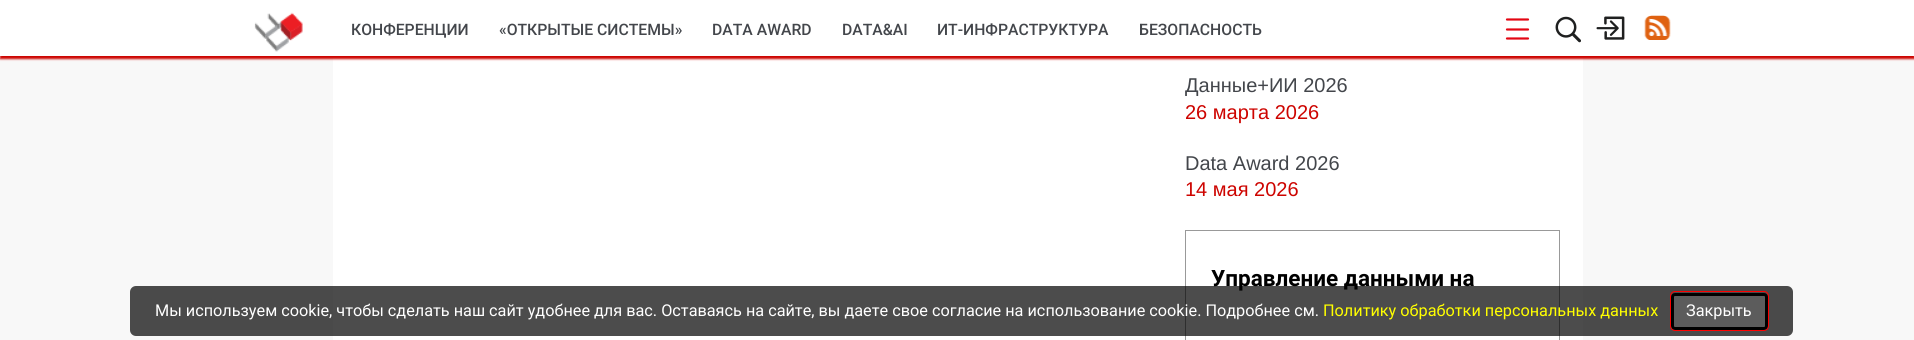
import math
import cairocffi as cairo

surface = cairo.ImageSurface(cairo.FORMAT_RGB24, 1914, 340)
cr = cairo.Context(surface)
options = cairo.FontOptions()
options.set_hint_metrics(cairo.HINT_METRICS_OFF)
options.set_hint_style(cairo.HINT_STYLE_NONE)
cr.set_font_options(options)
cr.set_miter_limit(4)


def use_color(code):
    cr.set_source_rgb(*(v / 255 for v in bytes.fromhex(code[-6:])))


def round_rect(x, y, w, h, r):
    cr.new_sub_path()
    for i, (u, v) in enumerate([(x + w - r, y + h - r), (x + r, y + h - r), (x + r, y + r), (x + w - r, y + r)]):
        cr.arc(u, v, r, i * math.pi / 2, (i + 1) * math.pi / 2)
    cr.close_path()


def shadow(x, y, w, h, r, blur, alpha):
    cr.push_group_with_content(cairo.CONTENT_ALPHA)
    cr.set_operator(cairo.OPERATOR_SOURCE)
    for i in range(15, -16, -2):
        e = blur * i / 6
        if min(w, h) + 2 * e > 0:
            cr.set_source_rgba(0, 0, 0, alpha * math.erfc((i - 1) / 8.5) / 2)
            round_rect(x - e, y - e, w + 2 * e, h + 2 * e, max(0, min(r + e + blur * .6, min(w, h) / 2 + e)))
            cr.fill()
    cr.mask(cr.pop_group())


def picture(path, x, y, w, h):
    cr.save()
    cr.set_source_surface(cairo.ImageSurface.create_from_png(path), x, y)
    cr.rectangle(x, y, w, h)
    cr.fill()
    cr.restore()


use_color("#f8f8f8")
cr.paint()
use_color("#ffffff")
cr.rectangle(333, 56, 1250, 284)
cr.fill()
use_color("#cd0400")
shadow(0, 3, 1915, 56, 0, 1, 1)
use_color("#ffffff")
cr.rectangle(0, 0, 1914, 56)
cr.fill()
picture("img1.png", 254, 12, 49, 40)
cr.select_font_face("Roboto Medium")
cr.set_font_size(15.75)
use_color("#43464b")
cr.move_to(351, 35)
cr.show_text("КОНФЕРЕНЦИИ")
cr.move_to(499, 35)
cr.show_text("«ОТКРЫТЫЕ СИСТЕМЫ»")
cr.move_to(712, 35)
cr.show_text("DATA AWARD")
cr.move_to(842, 35)
cr.show_text("DATA&AI")
cr.move_to(937, 35)
cr.show_text("ИТ-ИНФРАСТРУКТУРА")
cr.move_to(1139, 35)
cr.show_text("БЕЗОПАСНОСТЬ")
cr.new_path()
cr.move_to(1507, 19.5)
cr.line_to(1528, 19.5)
cr.move_to(1507, 29.5)
cr.line_to(1528, 29.5)
cr.move_to(1507, 38.5)
cr.line_to(1528, 38.5)
use_color("#e30613")
cr.set_line_width(2.2)
cr.set_line_cap(cairo.LINE_CAP_ROUND)
cr.stroke()
picture("img2.png", 1555, 16, 26, 27)
picture("img3.png", 1596, 16, 29, 24)
picture("img4.png", 1644, 15, 27, 25)
cr.select_font_face("Liberation Sans")
cr.set_font_size(20)
use_color("#43464b")
cr.move_to(1185, 92)
cr.show_text("Данные+ИИ 2026")
use_color("#cd0400")
cr.move_to(1185, 119)
cr.show_text("26 марта 2026")
use_color("#43464b")
cr.move_to(1185, 170)
cr.show_text("Data Award 2026")
use_color("#cd0400")
cr.move_to(1185, 196)
cr.show_text("14 мая 2026")
cr.rectangle(1185.5, 230.5, 374, 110)
use_color("#999999")
cr.set_line_width(1)
cr.set_line_cap(cairo.LINE_CAP_BUTT)
cr.stroke()
cr.select_font_face("Roboto", cairo.FONT_SLANT_NORMAL, cairo.FONT_WEIGHT_BOLD)
cr.set_font_size(22.5)
use_color("#000000")
cr.move_to(1211, 286)
cr.show_text("Управление данными на")
cr.set_source_rgba(0, 0, 0, 0.7)
round_rect(130, 286, 1663, 50, 6)
cr.fill()
cr.select_font_face("Roboto")
cr.set_font_size(16.25)
use_color("#ffffff")
cr.move_to(155, 316)
cr.show_text("Мы используем cookie, чтобы сделать наш сайт удобнее для вас. Оставаясь на сайте, вы даете свое согласие на использование cookie. Подробнее см.")
use_color("#ffff00")
cr.move_to(1323, 316)
cr.show_text("Политику обработки персональных данных")
use_color("#5c5c5c")
round_rect(1672.5, 294.5, 94, 34, 2.5)
cr.fill_preserve()
use_color("#000000")
cr.set_line_width(3)
cr.stroke()
round_rect(1670.5, 291.5, 98, 39, 4.5)
use_color("#ff0000")
cr.set_line_width(1)
cr.stroke()
use_color("#ffffff")
cr.move_to(1686, 316)
cr.show_text("Закрыть")
surface.write_to_png("result.png")
